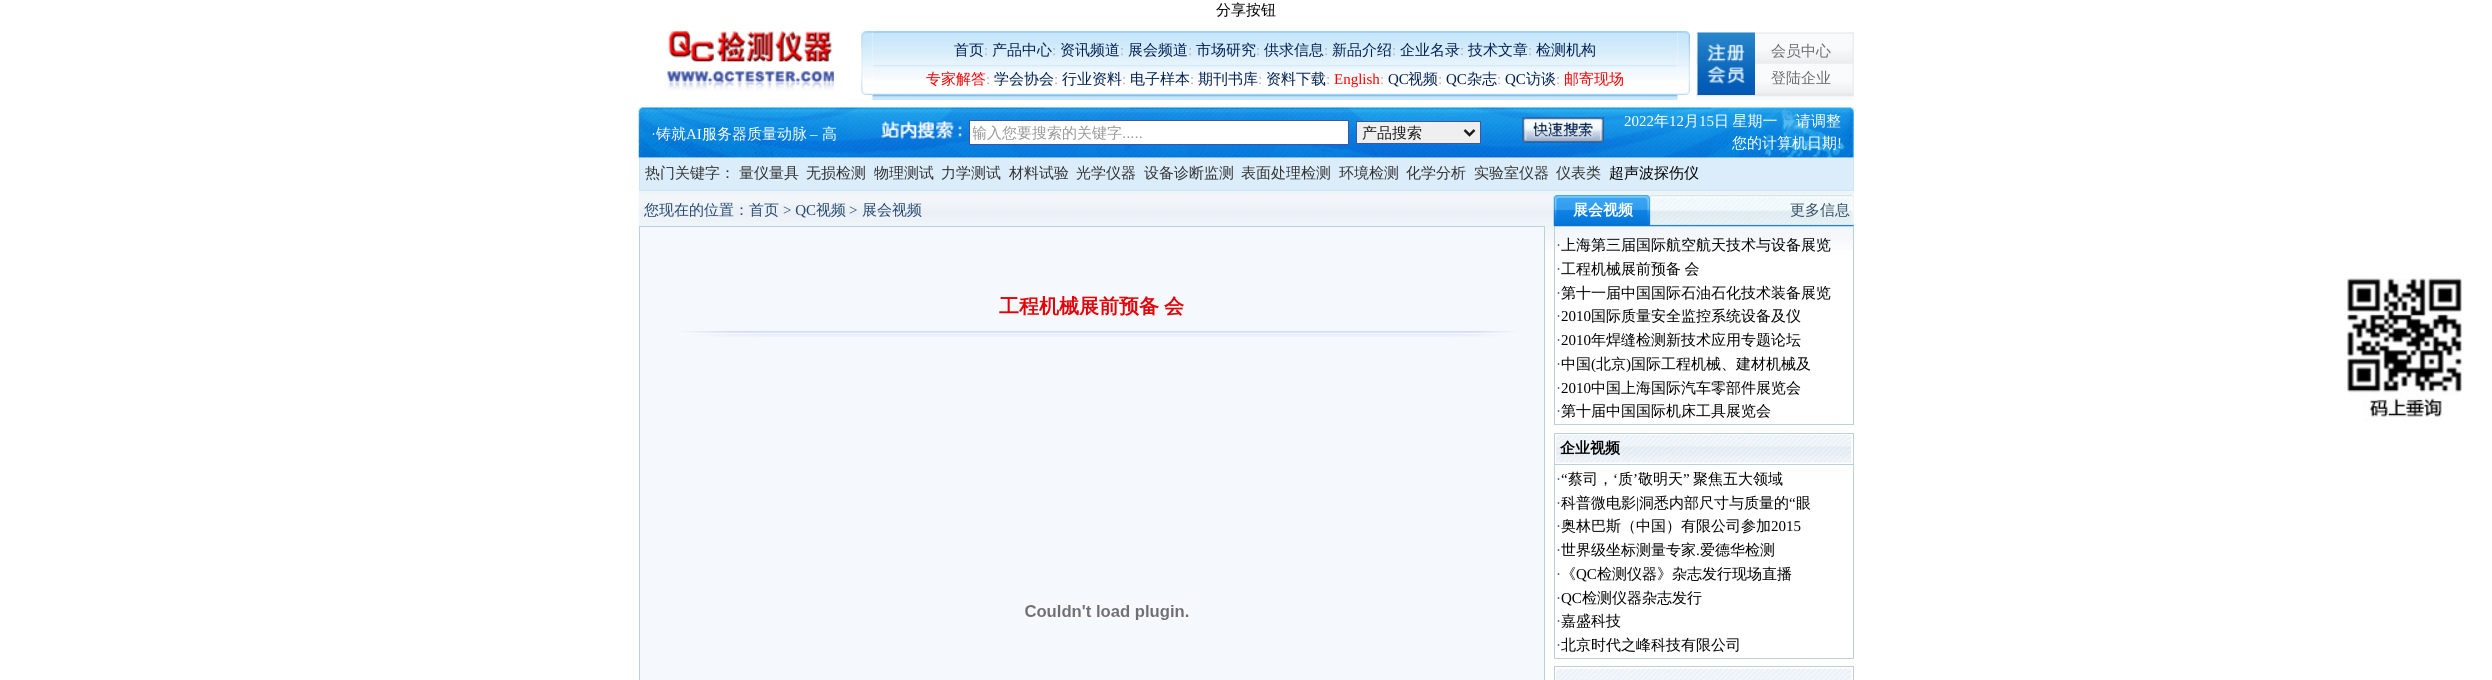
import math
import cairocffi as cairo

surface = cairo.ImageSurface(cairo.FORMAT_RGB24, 2492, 680)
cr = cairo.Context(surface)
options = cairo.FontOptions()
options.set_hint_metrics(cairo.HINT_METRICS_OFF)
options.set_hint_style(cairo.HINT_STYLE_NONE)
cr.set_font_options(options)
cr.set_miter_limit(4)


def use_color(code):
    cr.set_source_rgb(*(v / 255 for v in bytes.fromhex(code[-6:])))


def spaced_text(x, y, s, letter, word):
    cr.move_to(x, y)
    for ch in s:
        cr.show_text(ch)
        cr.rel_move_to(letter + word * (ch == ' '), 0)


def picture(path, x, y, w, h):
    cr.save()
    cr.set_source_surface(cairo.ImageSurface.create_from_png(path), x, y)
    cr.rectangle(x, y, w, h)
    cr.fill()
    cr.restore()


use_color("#ffffff")
cr.paint()
cr.select_font_face("WenQuanYi Zen Hei Medium")
cr.set_font_size(15)
use_color("#000000")
cr.move_to(1216, 15)
cr.show_text("分享按钮")
picture("img1.png", 667, 31, 167, 60)
picture("img3.png", 872, 31, 806, 69)
picture("img2.png", 861, 31, 12, 64)
use_color("#002152")
cr.move_to(954, 55)
cr.show_text("首页")
cr.select_font_face("Liberation Serif")
use_color("#a8b0b8")
cr.move_to(984, 55)
cr.show_text(":")
cr.select_font_face("WenQuanYi Zen Hei Medium")
use_color("#002152")
cr.move_to(992, 55)
cr.show_text("产品中心")
cr.select_font_face("Liberation Serif")
use_color("#a8b0b8")
cr.move_to(1052, 55)
cr.show_text(":")
cr.select_font_face("WenQuanYi Zen Hei Medium")
use_color("#002152")
cr.move_to(1060, 55)
cr.show_text("资讯频道")
cr.select_font_face("Liberation Serif")
use_color("#a8b0b8")
cr.move_to(1120, 55)
cr.show_text(":")
cr.select_font_face("WenQuanYi Zen Hei Medium")
use_color("#002152")
cr.move_to(1128, 55)
cr.show_text("展会频道")
cr.select_font_face("Liberation Serif")
use_color("#a8b0b8")
cr.move_to(1188, 55)
cr.show_text(":")
cr.select_font_face("WenQuanYi Zen Hei Medium")
use_color("#002152")
cr.move_to(1196, 55)
cr.show_text("市场研究")
cr.select_font_face("Liberation Serif")
use_color("#a8b0b8")
cr.move_to(1256, 55)
cr.show_text(":")
cr.select_font_face("WenQuanYi Zen Hei Medium")
use_color("#002152")
cr.move_to(1264, 55)
cr.show_text("供求信息")
cr.select_font_face("Liberation Serif")
use_color("#a8b0b8")
cr.move_to(1324, 55)
cr.show_text(":")
cr.select_font_face("WenQuanYi Zen Hei Medium")
use_color("#002152")
cr.move_to(1332, 55)
cr.show_text("新品介绍")
cr.select_font_face("Liberation Serif")
use_color("#a8b0b8")
cr.move_to(1392, 55)
cr.show_text(":")
cr.select_font_face("WenQuanYi Zen Hei Medium")
use_color("#002152")
cr.move_to(1400, 55)
cr.show_text("企业名录")
cr.select_font_face("Liberation Serif")
use_color("#a8b0b8")
cr.move_to(1460, 55)
cr.show_text(":")
cr.select_font_face("WenQuanYi Zen Hei Medium")
use_color("#002152")
cr.move_to(1468, 55)
cr.show_text("技术文章")
cr.select_font_face("Liberation Serif")
use_color("#a8b0b8")
cr.move_to(1528, 55)
cr.show_text(":")
cr.select_font_face("WenQuanYi Zen Hei Medium")
use_color("#002152")
cr.move_to(1536, 55)
cr.show_text("检测机构")
use_color("#ff0000")
cr.move_to(926, 84)
cr.show_text("专家解答")
cr.select_font_face("Liberation Serif")
use_color("#a8b0b8")
cr.move_to(986, 84)
cr.show_text(":")
cr.select_font_face("WenQuanYi Zen Hei Medium")
use_color("#002152")
cr.move_to(994, 84)
cr.show_text("学会协会")
cr.select_font_face("Liberation Serif")
use_color("#a8b0b8")
cr.move_to(1054, 84)
cr.show_text(":")
cr.select_font_face("WenQuanYi Zen Hei Medium")
use_color("#002152")
cr.move_to(1062, 84)
cr.show_text("行业资料")
cr.select_font_face("Liberation Serif")
use_color("#a8b0b8")
cr.move_to(1122, 84)
cr.show_text(":")
cr.select_font_face("WenQuanYi Zen Hei Medium")
use_color("#002152")
cr.move_to(1130, 84)
cr.show_text("电子样本")
cr.select_font_face("Liberation Serif")
use_color("#a8b0b8")
cr.move_to(1190, 84)
cr.show_text(":")
cr.select_font_face("WenQuanYi Zen Hei Medium")
use_color("#002152")
cr.move_to(1198, 84)
cr.show_text("期刊书库")
cr.select_font_face("Liberation Serif")
use_color("#a8b0b8")
cr.move_to(1258, 84)
cr.show_text(":")
cr.select_font_face("WenQuanYi Zen Hei Medium")
use_color("#002152")
cr.move_to(1266, 84)
cr.show_text("资料下载")
cr.select_font_face("Liberation Serif")
use_color("#a8b0b8")
cr.move_to(1326, 84)
cr.show_text(":")
use_color("#ff0000")
cr.move_to(1334, 84)
cr.show_text("English")
use_color("#a8b0b8")
cr.move_to(1380, 84)
cr.show_text(":")
use_color("#002152")
cr.move_to(1388, 84)
cr.show_text("QC")
cr.select_font_face("WenQuanYi Zen Hei Medium")
cr.move_to(1408, 84)
cr.show_text("视频")
cr.select_font_face("Liberation Serif")
use_color("#a8b0b8")
cr.move_to(1438, 84)
cr.show_text(":")
use_color("#002152")
cr.move_to(1446, 84)
cr.show_text("QC")
cr.select_font_face("WenQuanYi Zen Hei Medium")
cr.move_to(1467, 84)
cr.show_text("杂志")
cr.select_font_face("Liberation Serif")
use_color("#a8b0b8")
cr.move_to(1497, 84)
cr.show_text(":")
use_color("#002152")
cr.move_to(1505, 84)
cr.show_text("QC")
cr.select_font_face("WenQuanYi Zen Hei Medium")
cr.move_to(1526, 84)
cr.show_text("访谈")
cr.select_font_face("Liberation Serif")
use_color("#a8b0b8")
cr.move_to(1556, 84)
cr.show_text(":")
cr.select_font_face("WenQuanYi Zen Hei Medium")
use_color("#ff0000")
cr.move_to(1564, 84)
cr.show_text("邮寄现场")
picture("img4.png", 1677, 31, 13, 64)
picture("img5.png", 1696, 32, 158, 68)
picture("img6.png", 1697, 32, 58, 63)
use_color("#6b6c6e")
cr.move_to(1771, 56)
cr.show_text("会员中心")
cr.move_to(1771, 83)
cr.show_text("登陆企业")
picture("img7.png", 1849, 32, 5, 61)
picture("img8.png", 638, 107, 1216, 51)
cr.select_font_face("Liberation Serif")
use_color("#ffffff")
cr.move_to(651, 139)
cr.show_text("·")
cr.select_font_face("WenQuanYi Zen Hei Medium")
cr.move_to(656, 139)
cr.show_text("铸就")
cr.select_font_face("Liberation Serif")
cr.move_to(686, 139)
cr.show_text("AI")
cr.select_font_face("WenQuanYi Zen Hei Medium")
cr.move_to(702, 139)
cr.show_text("服务器质量动脉")
cr.move_to(822, 139)
cr.show_text("高")
cr.select_font_face("Liberation Serif")
cr.move_to(810, 139)
cr.show_text("–")
picture("img9.png", 881, 121, 81, 18)
cr.rectangle(969.5, 120.5, 379, 24)
cr.fill_preserve()
use_color("#4055a3")
cr.set_line_width(1)
cr.stroke()
cr.save()
cr.rectangle(973, 121, 375, 23)
cr.clip()
cr.select_font_face("WenQuanYi Zen Hei Medium")
use_color("#989898")
cr.move_to(972, 138)
cr.show_text("输入您要搜索的关键字")
cr.restore()
cr.select_font_face("Liberation Sans")
use_color("#989898")
cr.move_to(1122, 138)
cr.show_text(".....")
use_color("#efefef")
cr.rectangle(1356.5, 121.5, 124, 22)
cr.fill_preserve()
use_color("#4055a3")
cr.stroke()
cr.new_path()
cr.move_to(1464.5, 130)
cr.line_to(1469.5, 135)
cr.line_to(1474.5, 130)
use_color("#1b1b1b")
cr.set_line_width(2.5)
cr.stroke()
cr.select_font_face("WenQuanYi Zen Hei Medium")
cr.move_to(1362, 138)
cr.show_text("产品搜索")
picture("img10.png", 1522, 117, 82, 26)
cr.select_font_face("Liberation Serif")
use_color("#ffffff")
cr.move_to(1624, 126)
cr.show_text("2022")
cr.select_font_face("WenQuanYi Zen Hei Medium")
cr.move_to(1654, 126)
cr.show_text("年")
cr.select_font_face("Liberation Serif")
cr.move_to(1669, 126)
cr.show_text("12")
cr.select_font_face("WenQuanYi Zen Hei Medium")
cr.move_to(1684, 126)
cr.show_text("月")
cr.select_font_face("Liberation Serif")
cr.move_to(1699, 126)
cr.show_text("15")
cr.select_font_face("WenQuanYi Zen Hei Medium")
spaced_text(1714, 126, "日 星期一 　请调整", 0, -1)
cr.move_to(1732, 148)
cr.show_text("您的计算机日期")
cr.select_font_face("Liberation Serif")
cr.move_to(1837, 148)
cr.show_text("!")
use_color("#dbecfa")
cr.rectangle(640, 158, 1213, 32)
cr.fill()
use_color("#cfe5f4")
cr.rectangle(1853, 158, 1, 33)
cr.fill()
cr.rectangle(639, 190, 1215, 1)
cr.fill()
cr.rectangle(639, 158, 1, 33)
cr.fill()
cr.select_font_face("WenQuanYi Zen Hei Medium")
use_color("#333333")
cr.move_to(645, 178)
cr.show_text("热门关键字：")
cr.move_to(739, 178)
cr.show_text("量仪量具")
cr.move_to(806, 178)
cr.show_text("无损检测")
cr.move_to(874, 178)
cr.show_text("物理测试")
cr.move_to(941, 178)
cr.show_text("力学测试")
cr.move_to(1009, 178)
cr.show_text("材料试验")
cr.move_to(1076, 178)
cr.show_text("光学仪器")
cr.move_to(1144, 178)
cr.show_text("设备诊断监测")
cr.move_to(1241, 178)
cr.show_text("表面处理检测")
cr.move_to(1339, 178)
cr.show_text("环境检测")
cr.move_to(1406, 178)
cr.show_text("化学分析")
cr.move_to(1474, 178)
cr.show_text("实验室仪器")
cr.move_to(1556, 178)
cr.show_text("仪表类")
use_color("#000000")
cr.move_to(1609, 178)
cr.show_text("超声波探伤仪")
picture("img11.png", 638, 191, 1216, 59)
use_color("#264970")
cr.move_to(644, 215)
cr.show_text("您现在的位置：首页")
cr.select_font_face("Liberation Serif")
cr.move_to(783, 215)
cr.show_text("> QC")
cr.select_font_face("WenQuanYi Zen Hei Medium")
cr.move_to(816, 215)
cr.show_text("视频")
cr.select_font_face("Liberation Serif")
cr.move_to(849, 215)
cr.show_text(">")
cr.select_font_face("WenQuanYi Zen Hei Medium")
cr.move_to(862, 215)
cr.show_text("展会视频")
use_color("#f5f8fd")
cr.rectangle(639.5, 226.5, 905, 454)
cr.fill_preserve()
use_color("#bcd0d9")
cr.set_line_width(1)
cr.stroke()
picture("img12.png", 678, 331, 838, 6)
cr.select_font_face("WenQuanYi Zen Hei", cairo.FONT_SLANT_NORMAL, cairo.FONT_WEIGHT_BOLD)
cr.set_font_size(20)
use_color("#e40206")
spaced_text(999, 313, "工程机械展前预备 会", 0, -1)
picture("img13.png", 1025, 605, 164, 15)
picture("img14.png", 1553, 195, 301, 32)
cr.set_font_size(15)
use_color("#ffffff")
cr.move_to(1573, 215)
cr.show_text("展会视频")
cr.select_font_face("WenQuanYi Zen Hei Medium")
use_color("#365066")
cr.move_to(1790, 215)
cr.show_text("更多信息")
use_color("#bcd0d9")
cr.rectangle(1853, 226, 1, 199)
cr.fill()
cr.rectangle(1554, 424, 300, 1)
cr.fill()
cr.rectangle(1554, 226, 1, 199)
cr.fill()
cr.select_font_face("Liberation Serif")
use_color("#264970")
cr.move_to(1556, 250)
cr.show_text("·")
cr.select_font_face("WenQuanYi Zen Hei Medium")
use_color("#000000")
cr.move_to(1561, 250)
cr.show_text("上海第三届国际航空航天技术与设备展览")
cr.select_font_face("Liberation Serif")
use_color("#264970")
cr.move_to(1556, 274)
cr.show_text("·")
cr.select_font_face("WenQuanYi Zen Hei Medium")
use_color("#000000")
spaced_text(1561, 274, "工程机械展前预备 会", 0, -1)
cr.select_font_face("Liberation Serif")
use_color("#264970")
cr.move_to(1556, 298)
cr.show_text("·")
cr.select_font_face("WenQuanYi Zen Hei Medium")
use_color("#000000")
cr.move_to(1561, 298)
cr.show_text("第十一届中国国际石油石化技术装备展览")
cr.select_font_face("Liberation Serif")
use_color("#264970")
cr.move_to(1556, 321)
cr.show_text("·")
use_color("#000000")
cr.move_to(1561, 321)
cr.show_text("2010")
cr.select_font_face("WenQuanYi Zen Hei Medium")
cr.move_to(1591, 321)
cr.show_text("国际质量安全监控系统设备及仪")
cr.select_font_face("Liberation Serif")
use_color("#264970")
cr.move_to(1556, 345)
cr.show_text("·")
use_color("#000000")
cr.move_to(1561, 345)
cr.show_text("2010")
cr.select_font_face("WenQuanYi Zen Hei Medium")
cr.move_to(1591, 345)
cr.show_text("年焊缝检测新技术应用专题论坛")
cr.select_font_face("Liberation Serif")
use_color("#264970")
cr.move_to(1556, 369)
cr.show_text("·")
cr.select_font_face("WenQuanYi Zen Hei Medium")
use_color("#000000")
cr.move_to(1561, 369)
cr.show_text("中国")
cr.select_font_face("Liberation Serif")
cr.move_to(1591, 369)
cr.show_text("(")
cr.select_font_face("WenQuanYi Zen Hei Medium")
cr.move_to(1596, 369)
cr.show_text("北京")
cr.select_font_face("Liberation Serif")
cr.move_to(1626, 369)
cr.show_text(")")
cr.select_font_face("WenQuanYi Zen Hei Medium")
cr.move_to(1631, 369)
cr.show_text("国际工程机械、建材机械及")
cr.select_font_face("Liberation Serif")
use_color("#264970")
cr.move_to(1556, 393)
cr.show_text("·")
use_color("#000000")
cr.move_to(1561, 393)
cr.show_text("2010")
cr.select_font_face("WenQuanYi Zen Hei Medium")
cr.move_to(1591, 393)
cr.show_text("中国上海国际汽车零部件展览会")
cr.select_font_face("Liberation Serif")
use_color("#264970")
cr.move_to(1556, 416)
cr.show_text("·")
cr.select_font_face("WenQuanYi Zen Hei Medium")
use_color("#000000")
cr.move_to(1561, 416)
cr.show_text("第十届中国国际机床工具展览会")
cr.rectangle(1554.5, 433.5, 299, 225)
use_color("#bcd0d9")
cr.stroke()
cr.rectangle(1555, 464, 298, 1)
cr.fill()
picture("img15.png", 1556, 435, 296, 28)
cr.select_font_face("WenQuanYi Zen Hei", cairo.FONT_SLANT_NORMAL, cairo.FONT_WEIGHT_BOLD)
use_color("#000000")
cr.move_to(1560, 453)
cr.show_text("企业视频")
cr.select_font_face("Liberation Serif")
cr.move_to(1561, 484)
cr.show_text("“")
cr.select_font_face("WenQuanYi Zen Hei Medium")
cr.move_to(1568, 484)
cr.show_text("蔡司，")
cr.select_font_face("Liberation Serif")
cr.move_to(1613, 484)
cr.show_text("‘")
cr.select_font_face("WenQuanYi Zen Hei Medium")
cr.move_to(1618, 484)
cr.show_text("质")
cr.select_font_face("Liberation Serif")
cr.move_to(1633, 484)
cr.show_text("’")
cr.select_font_face("WenQuanYi Zen Hei Medium")
cr.move_to(1638, 484)
cr.show_text("敬明天")
cr.select_font_face("Liberation Serif")
cr.move_to(1683, 484)
cr.show_text("”")
cr.select_font_face("WenQuanYi Zen Hei Medium")
cr.move_to(1693, 484)
cr.show_text("聚焦五大领域")
cr.select_font_face("Liberation Serif")
use_color("#264970")
cr.move_to(1556, 484)
cr.show_text("·")
cr.select_font_face("WenQuanYi Zen Hei Medium")
use_color("#000000")
cr.move_to(1561, 508)
cr.show_text("科普微电影")
cr.select_font_face("Liberation Serif")
cr.move_to(1636, 508)
cr.show_text("|")
cr.select_font_face("WenQuanYi Zen Hei Medium")
cr.move_to(1639, 508)
cr.show_text("洞悉内部尺寸与质量的")
cr.select_font_face("Liberation Serif")
cr.move_to(1789, 508)
cr.show_text("“")
cr.select_font_face("WenQuanYi Zen Hei Medium")
cr.move_to(1796, 508)
cr.show_text("眼")
cr.select_font_face("Liberation Serif")
use_color("#264970")
cr.move_to(1556, 508)
cr.show_text("·")
cr.move_to(1556, 531)
cr.show_text("·")
cr.select_font_face("WenQuanYi Zen Hei Medium")
use_color("#000000")
cr.move_to(1561, 531)
cr.show_text("奥林巴斯（中国）有限公司参加")
cr.select_font_face("Liberation Serif")
cr.move_to(1771, 531)
cr.show_text("2015")
use_color("#264970")
cr.move_to(1556, 555)
cr.show_text("·")
cr.select_font_face("WenQuanYi Zen Hei Medium")
use_color("#000000")
cr.move_to(1561, 555)
cr.show_text("世界级坐标测量专家")
cr.move_to(1700, 555)
cr.show_text("爱德华检测")
cr.select_font_face("Liberation Serif")
cr.move_to(1696, 555)
cr.show_text(".")
use_color("#264970")
cr.move_to(1556, 579)
cr.show_text("·")
cr.select_font_face("WenQuanYi Zen Hei Medium")
use_color("#000000")
cr.move_to(1561, 579)
cr.show_text("《")
cr.select_font_face("Liberation Serif")
cr.move_to(1576, 579)
cr.show_text("QC")
cr.select_font_face("WenQuanYi Zen Hei Medium")
cr.move_to(1597, 579)
cr.show_text("检测仪器》杂志发行现场直播")
cr.select_font_face("Liberation Serif")
use_color("#264970")
cr.move_to(1556, 603)
cr.show_text("·")
use_color("#000000")
cr.move_to(1561, 603)
cr.show_text("QC")
cr.select_font_face("WenQuanYi Zen Hei Medium")
cr.move_to(1582, 603)
cr.show_text("检测仪器杂志发行")
cr.select_font_face("Liberation Serif")
use_color("#264970")
cr.move_to(1556, 626)
cr.show_text("·")
cr.select_font_face("WenQuanYi Zen Hei Medium")
use_color("#000000")
cr.move_to(1561, 626)
cr.show_text("嘉盛科技")
cr.select_font_face("Liberation Serif")
use_color("#264970")
cr.move_to(1556, 650)
cr.show_text("·")
cr.select_font_face("WenQuanYi Zen Hei Medium")
use_color("#000000")
cr.move_to(1561, 650)
cr.show_text("北京时代之峰科技有限公司")
cr.rectangle(1554.5, 666.5, 299, 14)
use_color("#bcd0d9")
cr.stroke()
picture("img16.png", 1556, 668, 296, 12)
picture("img17.png", 2347, 278, 115, 143)
surface.write_to_png("result.png")
